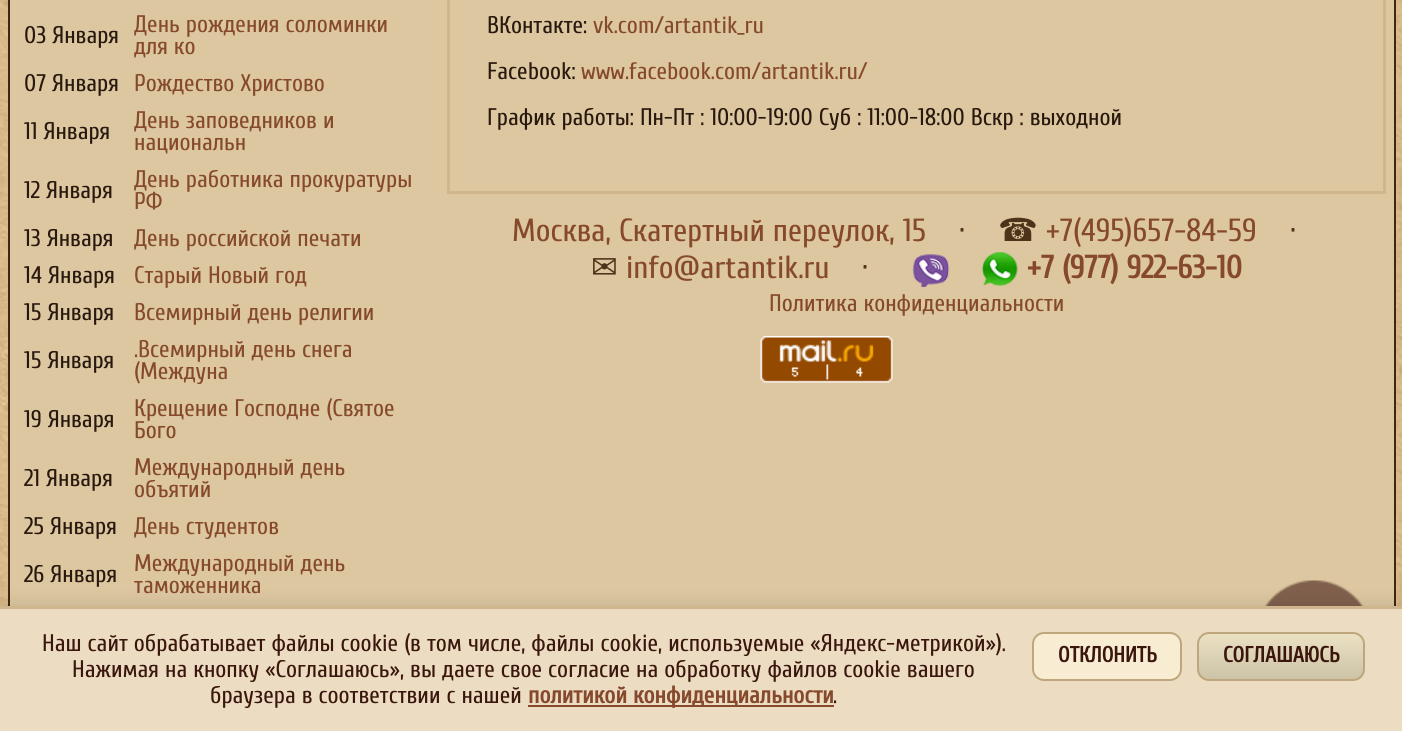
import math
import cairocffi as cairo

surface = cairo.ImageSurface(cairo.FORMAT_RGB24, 1402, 731)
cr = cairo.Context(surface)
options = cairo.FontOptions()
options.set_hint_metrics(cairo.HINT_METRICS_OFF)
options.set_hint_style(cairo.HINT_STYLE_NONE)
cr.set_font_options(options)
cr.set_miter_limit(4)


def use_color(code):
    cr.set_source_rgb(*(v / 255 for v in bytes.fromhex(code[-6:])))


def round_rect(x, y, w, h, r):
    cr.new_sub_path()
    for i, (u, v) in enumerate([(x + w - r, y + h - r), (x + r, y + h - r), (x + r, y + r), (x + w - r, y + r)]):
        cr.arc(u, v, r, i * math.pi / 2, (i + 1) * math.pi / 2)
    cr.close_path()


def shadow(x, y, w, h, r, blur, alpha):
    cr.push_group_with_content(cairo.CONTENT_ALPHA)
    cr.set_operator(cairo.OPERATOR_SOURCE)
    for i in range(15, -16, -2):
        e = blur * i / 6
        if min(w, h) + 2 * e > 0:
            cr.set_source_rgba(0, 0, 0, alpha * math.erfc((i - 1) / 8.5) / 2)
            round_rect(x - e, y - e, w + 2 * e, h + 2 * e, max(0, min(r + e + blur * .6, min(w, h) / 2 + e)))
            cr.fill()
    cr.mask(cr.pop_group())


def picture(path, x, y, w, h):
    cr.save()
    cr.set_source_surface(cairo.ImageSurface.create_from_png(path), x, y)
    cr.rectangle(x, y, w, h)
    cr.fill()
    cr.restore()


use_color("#ffffff")
cr.paint()
picture("img1.png", 0, 0, 1402, 606)
use_color("#dcc7a0")
cr.rectangle(10, 0, 1384, 606)
cr.fill()
use_color("#3e270f")
cr.rectangle(1394, 0, 2, 606)
cr.fill()
cr.rectangle(8, 0, 2, 606)
cr.fill()
cr.select_font_face("Cuprum")
cr.set_font_size(24)
use_color("#28180e")
cr.move_to(24, 43)
cr.show_text("03 Января")
use_color("#86492e")
cr.move_to(134, 32)
cr.show_text("День рождения соломинки")
cr.move_to(134, 54)
cr.show_text("для ко")
use_color("#28180e")
cr.move_to(24, 91)
cr.show_text("07 Января")
use_color("#86492e")
cr.move_to(134, 91)
cr.show_text("Рождество Христово")
use_color("#28180e")
cr.move_to(24, 139)
cr.show_text("11 Января")
use_color("#86492e")
cr.move_to(134, 128)
cr.show_text("День заповедников и")
cr.move_to(134, 150)
cr.show_text("национальн")
use_color("#28180e")
cr.move_to(24, 198)
cr.show_text("12 Января")
use_color("#86492e")
cr.move_to(134, 187)
cr.show_text("День работника прокуратуры")
cr.move_to(134, 209)
cr.show_text("РФ")
use_color("#28180e")
cr.move_to(24, 246)
cr.show_text("13 Января")
use_color("#86492e")
cr.move_to(134, 246)
cr.show_text("День российской печати")
use_color("#28180e")
cr.move_to(24, 283)
cr.show_text("14 Января")
use_color("#86492e")
cr.move_to(134, 283)
cr.show_text("Старый Новый год")
use_color("#28180e")
cr.move_to(24, 320)
cr.show_text("15 Января")
use_color("#86492e")
cr.move_to(134, 320)
cr.show_text("Всемирный день религии")
use_color("#28180e")
cr.move_to(24, 368)
cr.show_text("15 Января")
use_color("#86492e")
cr.move_to(134, 357)
cr.show_text(".Всемирный день снега")
cr.move_to(134, 379)
cr.show_text("(Междуна")
use_color("#28180e")
cr.move_to(24, 427)
cr.show_text("19 Января")
use_color("#86492e")
cr.move_to(134, 416)
cr.show_text("Крещение Господне (Святое")
cr.move_to(134, 438)
cr.show_text("Бого")
use_color("#28180e")
cr.move_to(24, 486)
cr.show_text("21 Января")
use_color("#86492e")
cr.move_to(134, 475)
cr.show_text("Международный день")
cr.move_to(134, 497)
cr.show_text("объятий")
use_color("#28180e")
cr.move_to(24, 534)
cr.show_text("25 Января")
use_color("#86492e")
cr.move_to(134, 534)
cr.show_text("День студентов")
use_color("#28180e")
cr.move_to(24, 582)
cr.show_text("26 Января")
use_color("#86492e")
cr.move_to(134, 571)
cr.show_text("Международный день")
cr.move_to(134, 593)
cr.show_text("таможенника")
use_color("#cfb68d")
cr.rectangle(1383, 0, 3, 194)
cr.fill()
cr.rectangle(447, 191, 939, 3)
cr.fill()
cr.rectangle(447, 0, 3, 194)
cr.fill()
use_color("#28180e")
cr.move_to(487, 33)
cr.show_text("ВКонтакте:")
use_color("#86492e")
cr.move_to(593, 33)
cr.show_text("vk.com/artantik_ru")
use_color("#28180e")
cr.move_to(487, 79)
cr.show_text("Facebook:")
use_color("#86492e")
cr.move_to(581, 79)
cr.show_text("www.facebook.com/artantik.ru/")
use_color("#28180e")
cr.move_to(487, 125)
cr.show_text("График работы: Пн-Пт : 10:00-19:00 Суб : 11:00-18:00 Вскр : выходной")
cr.set_font_size(32)
use_color("#86492e")
cr.move_to(512, 241)
cr.show_text("Москва, Скатертный переулок, 15")
use_color("#4d3319")
cr.move_to(958, 241)
cr.show_text("·")
cr.select_font_face("DejaVu Sans")
cr.move_to(998, 241)
cr.show_text("☎")
cr.select_font_face("Cuprum")
use_color("#86492e")
cr.move_to(1046, 241)
cr.show_text("+7(495)657-84-59")
use_color("#4d3319")
cr.move_to(1289, 241)
cr.show_text("·")
cr.select_font_face("DejaVu Sans")
cr.move_to(591, 278)
cr.show_text("✉")
cr.select_font_face("Cuprum")
use_color("#86492e")
cr.move_to(626, 278)
cr.show_text("info@artantik.ru")
use_color("#4d3319")
cr.move_to(861, 278)
cr.show_text("·")
picture("img2.png", 912, 254, 38, 33)
picture("img3.png", 981, 252, 37, 34)
cr.select_font_face("Cuprum", cairo.FONT_SLANT_NORMAL, cairo.FONT_WEIGHT_BOLD)
use_color("#86492e")
cr.move_to(1027, 278)
cr.show_text("+7 (977) 922-63-10")
cr.select_font_face("Cuprum")
cr.set_font_size(24)
cr.move_to(769, 311)
cr.show_text("Политика конфиденциальности")
picture("img4.png", 760, 336, 133, 47)
picture("img5.png", 1264, 580, 100, 26)
use_color("#000000")
shadow(0, 603, 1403, 126, 0, 7.5, 0.1)
use_color("#ecddc2")
cr.rectangle(0, 609, 1402, 122)
cr.fill()
use_color("#cfb68d")
cr.rectangle(0, 606, 1402, 3)
cr.fill()
use_color("#3a160d")
cr.move_to(42, 651)
cr.show_text("Наш сайт обрабатывает файлы cookie (в том числе, файлы cookie, используемые «Яндекс-метрикой»).")
cr.move_to(72, 677)
cr.show_text("Нажимая на кнопку «Соглашаюсь», вы даете свое согласие на обработку файлов cookie вашего")
cr.move_to(210, 703)
cr.show_text("браузера в соответствии с нашей")
use_color("#86492e")
cr.rectangle(528, 705, 306, 2)
cr.fill()
cr.select_font_face("Cuprum", cairo.FONT_SLANT_NORMAL, cairo.FONT_WEIGHT_BOLD)
cr.move_to(528, 703)
cr.show_text("политикой конфиденциальности")
cr.select_font_face("Cuprum")
use_color("#3a160d")
cr.move_to(833, 703)
cr.show_text(".")
use_color("#f8edd3")
round_rect(1033, 633, 148, 47, 11)
cr.fill_preserve()
use_color("#bfa67d")
cr.stroke()
cr.select_font_face("Cuprum", cairo.FONT_SLANT_NORMAL, cairo.FONT_WEIGHT_BOLD)
cr.set_font_size(22)
use_color("#3a160d")
cr.move_to(1058, 662)
cr.show_text("ОТКЛОНИТЬ")
cr.save()
round_rect(1197, 632, 168, 49, 12)
cr.clip()
gradient = cairo.LinearGradient(1281, 633, 1281, 680)
gradient.add_color_stop_rgba(0.05, 0.918, 0.878, 0.761, 1)
gradient.add_color_stop_rgba(1, 0.8, 0.761, 0.651, 1)
cr.set_source(gradient)
cr.rectangle(1197, 633, 168, 47)
cr.fill()
cr.restore()
round_rect(1198, 633, 166, 47, 11)
use_color("#bfa67d")
cr.stroke()
use_color("#3a160d")
cr.move_to(1223, 662)
cr.show_text("СОГЛАШАЮСЬ")
surface.write_to_png("result.png")
